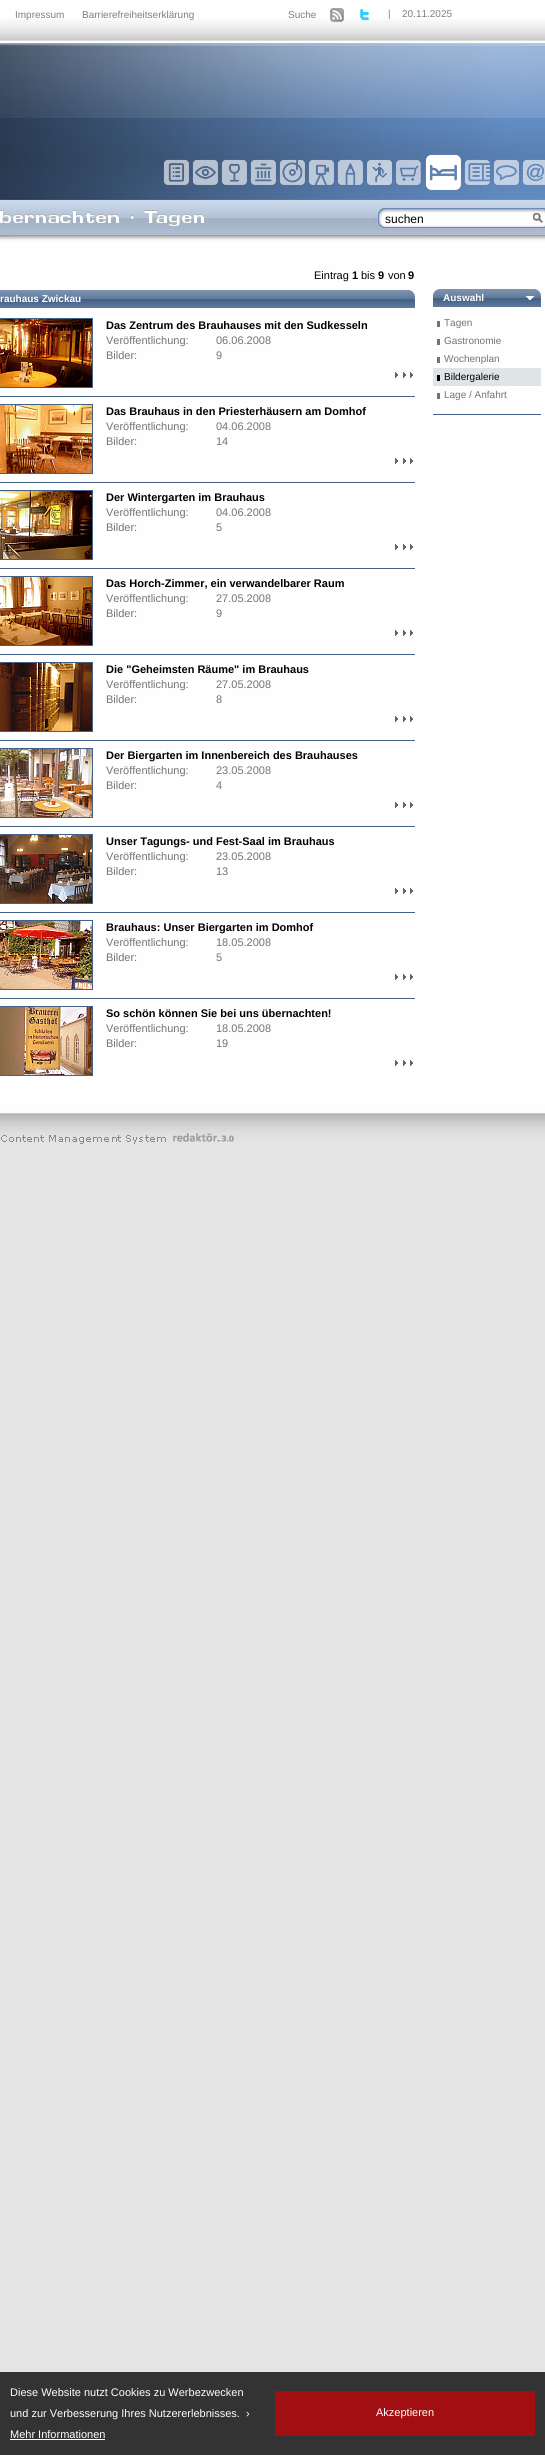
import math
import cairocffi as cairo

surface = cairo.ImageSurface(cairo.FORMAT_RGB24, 545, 2455)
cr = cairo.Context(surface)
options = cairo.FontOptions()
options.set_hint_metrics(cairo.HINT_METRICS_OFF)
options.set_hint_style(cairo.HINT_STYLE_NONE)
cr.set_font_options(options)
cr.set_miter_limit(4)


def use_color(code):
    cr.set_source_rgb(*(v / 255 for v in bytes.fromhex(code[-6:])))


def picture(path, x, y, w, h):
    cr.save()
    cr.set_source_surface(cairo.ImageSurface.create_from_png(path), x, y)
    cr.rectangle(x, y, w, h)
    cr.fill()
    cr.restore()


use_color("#e3e4e3")
cr.paint()
picture("img1.png", 0, 0, 545, 19)
use_color("#fdfefd")
cr.rectangle(0, 241, 545, 870)
cr.fill()
picture("img2.png", 0, 19, 545, 222)
cr.select_font_face("Liberation Sans")
cr.set_font_size(10)
use_color("#7e7f7e")
cr.move_to(15, 18)
cr.show_text("Impressum")
cr.move_to(82, 18)
cr.show_text("Barrierefreiheitserklärung")
cr.move_to(288, 18)
cr.show_text("Suche")
picture("img3.png", 330, 8, 14, 14)
picture("img4.png", 360, 9, 9, 12)
cr.move_to(388, 17)
cr.show_text("|")
cr.move_to(402, 17)
cr.show_text("20.11.2025")
picture("img5.png", 163, 159, 26, 26)
picture("img6.png", 192, 159, 26, 26)
picture("img7.png", 221, 159, 26, 26)
picture("img8.png", 250, 159, 26, 26)
picture("img9.png", 279, 159, 26, 26)
picture("img10.png", 308, 159, 26, 26)
picture("img11.png", 337, 159, 26, 26)
picture("img12.png", 367, 160, 25, 25)
picture("img13.png", 396, 160, 25, 25)
picture("img14.png", 425, 154, 36, 36)
picture("img15.png", 464, 159, 26, 26)
picture("img16.png", 493, 159, 26, 26)
picture("img17.png", 522, 159, 23, 26)
cr.set_font_size(12)
use_color("#000000")
cr.move_to(385, 223)
cr.show_text("suchen")
cr.set_font_size(11)
cr.move_to(314, 279)
cr.show_text("Eintrag")
cr.select_font_face("Liberation Sans", cairo.FONT_SLANT_NORMAL, cairo.FONT_WEIGHT_BOLD)
cr.move_to(352, 279)
cr.show_text("1")
cr.select_font_face("Liberation Sans")
cr.move_to(361, 279)
cr.show_text("bis")
cr.select_font_face("Liberation Sans", cairo.FONT_SLANT_NORMAL, cairo.FONT_WEIGHT_BOLD)
cr.move_to(378, 279)
cr.show_text("9")
cr.select_font_face("Liberation Sans")
cr.move_to(388, 279)
cr.show_text("von")
cr.select_font_face("Liberation Sans", cairo.FONT_SLANT_NORMAL, cairo.FONT_WEIGHT_BOLD)
cr.move_to(408, 279)
cr.show_text("9")
picture("img18.png", 0, 290, 415, 18)
cr.set_font_size(10)
use_color("#ffffff")
cr.move_to(0, 302)
cr.show_text("rauhaus Zwickau")
cr.rectangle(-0.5, 318.5, 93, 69)
use_color("#446288")
cr.set_line_width(1)
cr.stroke()
picture("img19.png", 0, 319, 92, 68)
cr.set_font_size(11)
use_color("#000000")
cr.move_to(106, 329)
cr.show_text("Das Zentrum des Brauhauses mit den Sudkesseln")
cr.select_font_face("Liberation Sans")
use_color("#737373")
cr.move_to(106, 344)
cr.show_text("Veröffentlichung:")
cr.move_to(106, 359)
cr.show_text("Bilder:")
picture("img20.png", 395, 372, 18, 6)
cr.move_to(216, 344)
cr.show_text("06.06.2008")
cr.move_to(216, 359)
cr.show_text("9")
use_color("#446288")
cr.rectangle(0, 396, 415, 1)
cr.fill()
cr.rectangle(-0.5, 404.5, 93, 69)
cr.stroke()
picture("img21.png", 0, 405, 92, 68)
cr.select_font_face("Liberation Sans", cairo.FONT_SLANT_NORMAL, cairo.FONT_WEIGHT_BOLD)
use_color("#000000")
cr.move_to(106, 415)
cr.show_text("Das Brauhaus in den Priesterhäusern am Domhof")
cr.select_font_face("Liberation Sans")
use_color("#737373")
cr.move_to(106, 430)
cr.show_text("Veröffentlichung:")
cr.move_to(106, 445)
cr.show_text("Bilder:")
picture("img20.png", 395, 458, 18, 6)
cr.move_to(216, 430)
cr.show_text("04.06.2008")
cr.move_to(216, 445)
cr.show_text("14")
use_color("#446288")
cr.rectangle(0, 482, 415, 1)
cr.fill()
cr.rectangle(-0.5, 490.5, 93, 69)
cr.stroke()
picture("img22.png", 0, 491, 92, 68)
cr.select_font_face("Liberation Sans", cairo.FONT_SLANT_NORMAL, cairo.FONT_WEIGHT_BOLD)
use_color("#000000")
cr.move_to(106, 501)
cr.show_text("Der Wintergarten im Brauhaus")
cr.select_font_face("Liberation Sans")
use_color("#737373")
cr.move_to(106, 516)
cr.show_text("Veröffentlichung:")
cr.move_to(106, 531)
cr.show_text("Bilder:")
picture("img20.png", 395, 544, 18, 6)
cr.move_to(216, 516)
cr.show_text("04.06.2008")
cr.move_to(216, 531)
cr.show_text("5")
use_color("#446288")
cr.rectangle(0, 568, 415, 1)
cr.fill()
cr.rectangle(-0.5, 576.5, 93, 69)
cr.stroke()
picture("img23.png", 0, 577, 92, 68)
cr.select_font_face("Liberation Sans", cairo.FONT_SLANT_NORMAL, cairo.FONT_WEIGHT_BOLD)
use_color("#000000")
cr.move_to(106, 587)
cr.show_text("Das Horch-Zimmer, ein verwandelbarer Raum")
cr.select_font_face("Liberation Sans")
use_color("#737373")
cr.move_to(106, 602)
cr.show_text("Veröffentlichung:")
cr.move_to(106, 617)
cr.show_text("Bilder:")
picture("img20.png", 395, 630, 18, 6)
cr.move_to(216, 602)
cr.show_text("27.05.2008")
cr.move_to(216, 617)
cr.show_text("9")
use_color("#446288")
cr.rectangle(0, 654, 415, 1)
cr.fill()
cr.rectangle(-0.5, 662.5, 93, 69)
cr.stroke()
picture("img24.png", 0, 663, 92, 68)
cr.select_font_face("Liberation Sans", cairo.FONT_SLANT_NORMAL, cairo.FONT_WEIGHT_BOLD)
use_color("#000000")
cr.move_to(106, 673)
cr.show_text("Die \"Geheimsten Räume\" im Brauhaus")
cr.select_font_face("Liberation Sans")
use_color("#737373")
cr.move_to(106, 688)
cr.show_text("Veröffentlichung:")
cr.move_to(106, 703)
cr.show_text("Bilder:")
picture("img20.png", 395, 716, 18, 6)
cr.move_to(216, 688)
cr.show_text("27.05.2008")
cr.move_to(216, 703)
cr.show_text("8")
use_color("#446288")
cr.rectangle(0, 740, 415, 1)
cr.fill()
cr.rectangle(-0.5, 748.5, 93, 69)
cr.stroke()
picture("img25.png", 0, 749, 92, 68)
cr.select_font_face("Liberation Sans", cairo.FONT_SLANT_NORMAL, cairo.FONT_WEIGHT_BOLD)
use_color("#000000")
cr.move_to(106, 759)
cr.show_text("Der Biergarten im Innenbereich des Brauhauses")
cr.select_font_face("Liberation Sans")
use_color("#737373")
cr.move_to(106, 774)
cr.show_text("Veröffentlichung:")
cr.move_to(106, 789)
cr.show_text("Bilder:")
picture("img20.png", 395, 802, 18, 6)
cr.move_to(216, 774)
cr.show_text("23.05.2008")
cr.move_to(216, 789)
cr.show_text("4")
use_color("#446288")
cr.rectangle(0, 826, 415, 1)
cr.fill()
cr.rectangle(-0.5, 834.5, 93, 69)
cr.stroke()
picture("img26.png", 0, 835, 92, 68)
cr.select_font_face("Liberation Sans", cairo.FONT_SLANT_NORMAL, cairo.FONT_WEIGHT_BOLD)
use_color("#000000")
cr.move_to(106, 845)
cr.show_text("Unser Tagungs- und Fest-Saal im Brauhaus")
cr.select_font_face("Liberation Sans")
use_color("#737373")
cr.move_to(106, 860)
cr.show_text("Veröffentlichung:")
cr.move_to(106, 875)
cr.show_text("Bilder:")
picture("img20.png", 395, 888, 18, 6)
cr.move_to(216, 860)
cr.show_text("23.05.2008")
cr.move_to(216, 875)
cr.show_text("13")
use_color("#446288")
cr.rectangle(0, 912, 415, 1)
cr.fill()
cr.rectangle(-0.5, 920.5, 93, 69)
cr.stroke()
picture("img27.png", 0, 921, 92, 68)
cr.select_font_face("Liberation Sans", cairo.FONT_SLANT_NORMAL, cairo.FONT_WEIGHT_BOLD)
use_color("#000000")
cr.move_to(106, 931)
cr.show_text("Brauhaus: Unser Biergarten im Domhof")
cr.select_font_face("Liberation Sans")
use_color("#737373")
cr.move_to(106, 946)
cr.show_text("Veröffentlichung:")
cr.move_to(106, 961)
cr.show_text("Bilder:")
picture("img20.png", 395, 974, 18, 6)
cr.move_to(216, 946)
cr.show_text("18.05.2008")
cr.move_to(216, 961)
cr.show_text("5")
use_color("#446288")
cr.rectangle(0, 998, 415, 1)
cr.fill()
cr.rectangle(-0.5, 1006.5, 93, 69)
cr.stroke()
picture("img28.png", 0, 1007, 92, 68)
cr.select_font_face("Liberation Sans", cairo.FONT_SLANT_NORMAL, cairo.FONT_WEIGHT_BOLD)
use_color("#000000")
cr.move_to(106, 1017)
cr.show_text("So schön können Sie bei uns übernachten!")
cr.select_font_face("Liberation Sans")
use_color("#737373")
cr.move_to(106, 1032)
cr.show_text("Veröffentlichung:")
cr.move_to(106, 1047)
cr.show_text("Bilder:")
picture("img20.png", 395, 1060, 18, 6)
cr.move_to(216, 1032)
cr.show_text("18.05.2008")
cr.move_to(216, 1047)
cr.show_text("19")
picture("img29.png", 433, 289, 108, 18)
cr.select_font_face("Liberation Sans", cairo.FONT_SLANT_NORMAL, cairo.FONT_WEIGHT_BOLD)
cr.set_font_size(10)
use_color("#ffffff")
cr.move_to(443, 301)
cr.show_text("Auswahl")
use_color("#737373")
cr.rectangle(437, 321, 3, 6)
cr.fill()
cr.select_font_face("Liberation Sans")
cr.move_to(444, 326)
cr.show_text("Tagen")
cr.rectangle(437, 339, 3, 6)
cr.fill()
cr.move_to(444, 344)
cr.show_text("Gastronomie")
cr.rectangle(437, 357, 3, 6)
cr.fill()
cr.move_to(444, 362)
cr.show_text("Wochenplan")
use_color("#dfe4e7")
cr.rectangle(433, 368, 108, 18)
cr.fill()
use_color("#000000")
cr.rectangle(437, 375, 3, 6)
cr.fill()
cr.move_to(444, 380)
cr.show_text("Bildergalerie")
use_color("#737373")
cr.rectangle(437, 393, 3, 6)
cr.fill()
cr.move_to(444, 398)
cr.show_text("Lage / Anfahrt")
use_color("#446288")
cr.rectangle(433, 414, 108, 1)
cr.fill()
picture("img30.png", 0, 1111, 545, 43)
use_color("#333333")
cr.rectangle(0, 2372, 545, 83)
cr.fill()
cr.set_font_size(11)
use_color("#ffffff")
cr.move_to(10, 2396)
cr.show_text("Diese Website nutzt Cookies zu Werbezwecken")
cr.move_to(10, 2417)
cr.show_text("und zur Verbesserung Ihres Nutzererlebnisses.  ›")
cr.move_to(10, 2438)
cr.show_text("Mehr Informationen")
cr.rectangle(10, 2439, 95, 1)
cr.fill()
use_color("#a20f12")
cr.rectangle(275, 2391, 260, 45)
cr.fill()
use_color("#ffffff")
cr.move_to(376, 2416)
cr.show_text("Akzeptieren")
surface.write_to_png("result.png")
